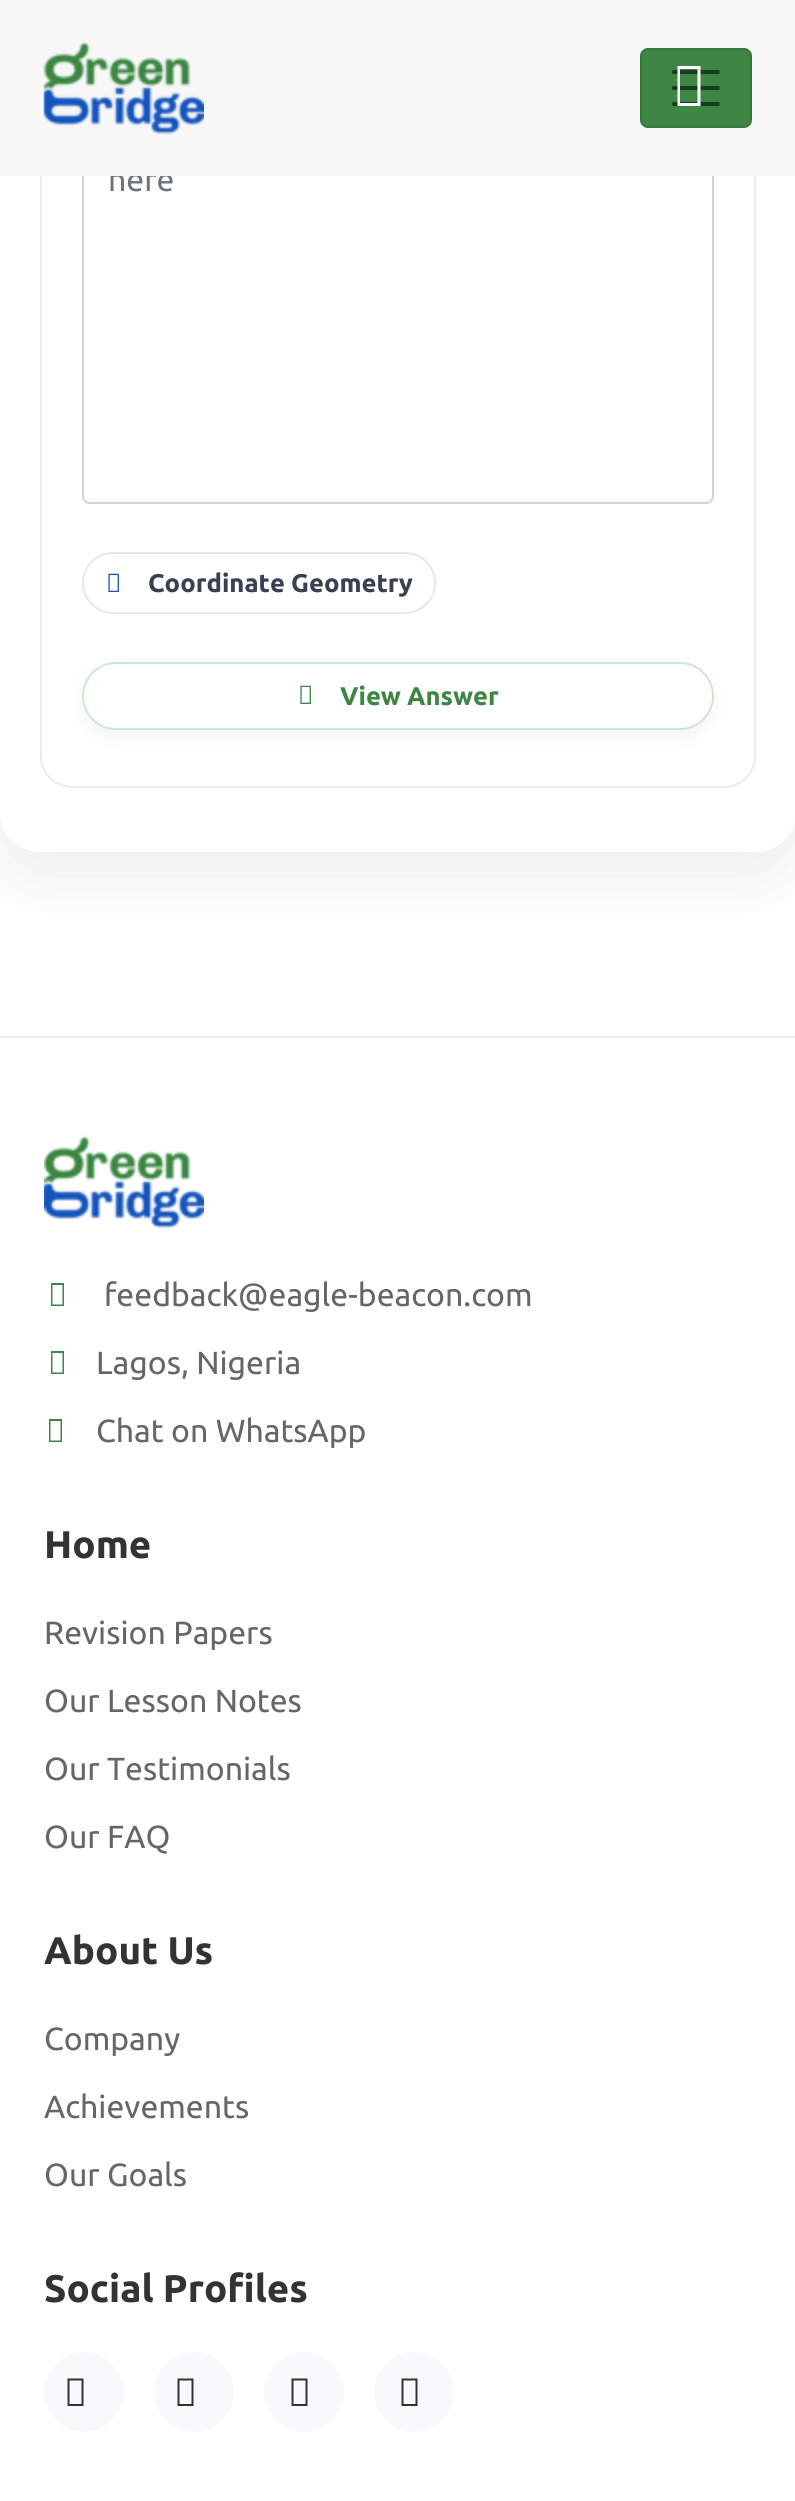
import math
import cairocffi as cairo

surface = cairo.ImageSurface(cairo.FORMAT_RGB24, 795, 2501)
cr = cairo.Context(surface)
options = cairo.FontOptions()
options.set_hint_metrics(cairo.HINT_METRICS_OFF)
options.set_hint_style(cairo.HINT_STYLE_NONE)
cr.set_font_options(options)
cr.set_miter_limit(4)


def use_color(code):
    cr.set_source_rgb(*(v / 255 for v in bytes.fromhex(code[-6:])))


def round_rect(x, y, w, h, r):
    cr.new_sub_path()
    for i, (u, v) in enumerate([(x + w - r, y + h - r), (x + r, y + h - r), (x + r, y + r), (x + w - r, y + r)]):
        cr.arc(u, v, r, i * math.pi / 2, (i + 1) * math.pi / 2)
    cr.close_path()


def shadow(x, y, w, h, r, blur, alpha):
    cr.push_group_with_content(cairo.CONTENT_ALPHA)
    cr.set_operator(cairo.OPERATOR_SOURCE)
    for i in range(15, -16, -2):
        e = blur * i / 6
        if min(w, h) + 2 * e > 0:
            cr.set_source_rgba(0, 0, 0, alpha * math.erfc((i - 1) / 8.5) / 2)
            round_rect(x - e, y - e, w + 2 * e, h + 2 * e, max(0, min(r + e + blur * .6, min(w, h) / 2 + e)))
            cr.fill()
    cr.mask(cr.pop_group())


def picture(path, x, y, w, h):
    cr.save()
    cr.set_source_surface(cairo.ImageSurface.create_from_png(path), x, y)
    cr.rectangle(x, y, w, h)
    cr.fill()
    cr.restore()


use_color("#ffffff")
cr.paint()
use_color("#000000")
shadow(0, -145, 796, 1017, 40, 35, 0.08)
use_color("#ffffff")
round_rect(0, -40, 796, 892, 40)
cr.fill()
round_rect(41, -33, 714, 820, 31)
use_color("#e9ecef")
cr.stroke()
round_rect(83, 93, 630, 410, 7)
use_color("#ced4da")
cr.stroke()
cr.select_font_face("Ubuntu")
cr.set_font_size(32)
use_color("#6c757d")
cr.move_to(108, 191)
cr.show_text("here")
use_color("#f7f7f8")
cr.rectangle(0, 0, 795, 176)
cr.fill()
picture("img1.png", 43, 41, 161, 94)
use_color("#3d8644")
round_rect(640, 48, 112, 80, 8)
cr.fill()
round_rect(641, 49, 110, 78, 7)
cr.set_source_rgba(0, 0, 0, 0.1)
cr.stroke()
cr.new_path()
cr.move_to(674, 72)
cr.line_to(718, 72)
cr.move_to(674, 88)
cr.line_to(718, 88)
cr.move_to(674, 104)
cr.line_to(718, 104)
use_color("#1b3c1f")
cr.set_line_width(4)
cr.set_line_cap(cairo.LINE_CAP_ROUND)
cr.stroke()
use_color("#ffffff")
cr.new_path()
cr.move_to(677.5, 106)
cr.line_to(677.5, 66)
cr.line_to(700.5, 66)
cr.line_to(700.5, 106)
cr.close_path()
cr.move_to(680, 103)
cr.line_to(697.5, 103)
cr.line_to(697.5, 69)
cr.line_to(680, 69)
cr.close_path()
cr.fill()
round_rect(83, 553, 352, 60, 30)
use_color("#e5e7eb")
cr.set_line_width(2)
cr.set_line_cap(cairo.LINE_CAP_BUTT)
cr.stroke()
picture("img2.png", 108, 573, 11, 19)
cr.select_font_face("Ubuntu", cairo.FONT_SLANT_NORMAL, cairo.FONT_WEIGHT_BOLD)
cr.set_font_size(25.6)
use_color("#374151")
cr.move_to(148, 592)
cr.show_text("Coordinate Geometry")
use_color("#000000")
shadow(82, 670, 632, 68, 34, 10, 0.04)
use_color("#ffffff")
round_rect(83, 663, 630, 66, 33)
cr.fill_preserve()
use_color("#c9e9d0")
cr.stroke()
picture("img3.png", 300, 685, 11, 19)
use_color("#3d8644")
cr.move_to(340, 705)
cr.show_text("View Answer")
use_color("#e9ecef")
cr.rectangle(0, 1036, 795, 2)
cr.fill()
picture("img4.png", 44, 1135, 160, 94)
use_color("#3d8644")
cr.new_path()
cr.move_to(51, 1306)
cr.line_to(51, 1283)
cr.line_to(64, 1283)
cr.line_to(64, 1306)
cr.close_path()
cr.move_to(52.5, 1304.5)
cr.line_to(62.5, 1304.5)
cr.line_to(62.5, 1285)
cr.line_to(52.5, 1285)
cr.close_path()
cr.fill()
cr.select_font_face("Ubuntu")
cr.set_font_size(32)
use_color("#666666")
cr.move_to(104, 1306)
cr.show_text("feedback@eagle-beacon.com")
use_color("#3d8644")
cr.new_path()
cr.move_to(51, 1374)
cr.line_to(51, 1351)
cr.line_to(64, 1351)
cr.line_to(64, 1374)
cr.close_path()
cr.move_to(52.5, 1372.5)
cr.line_to(62.5, 1372.5)
cr.line_to(62.5, 1353)
cr.line_to(52.5, 1353)
cr.close_path()
cr.fill()
use_color("#666666")
cr.move_to(96, 1374)
cr.show_text("Lagos, Nigeria")
use_color("#3d8644")
cr.new_path()
cr.move_to(49, 1442)
cr.line_to(49, 1419)
cr.line_to(62, 1419)
cr.line_to(62, 1442)
cr.close_path()
cr.move_to(50.5, 1440.5)
cr.line_to(60.5, 1440.5)
cr.line_to(60.5, 1421)
cr.line_to(50.5, 1421)
cr.close_path()
cr.fill()
use_color("#666666")
cr.move_to(96, 1442)
cr.show_text("Chat on WhatsApp")
cr.select_font_face("Ubuntu", cairo.FONT_SLANT_NORMAL, cairo.FONT_WEIGHT_BOLD)
cr.set_font_size(38.5)
use_color("#333333")
cr.move_to(44, 1558)
cr.show_text("Home")
cr.select_font_face("Ubuntu")
cr.set_font_size(32)
use_color("#666666")
cr.move_to(44, 1644)
cr.show_text("Revision Papers")
cr.move_to(44, 1712)
cr.show_text("Our Lesson Notes")
cr.move_to(44, 1780)
cr.show_text("Our Testimonials")
cr.move_to(44, 1848)
cr.show_text("Our FAQ")
cr.select_font_face("Ubuntu", cairo.FONT_SLANT_NORMAL, cairo.FONT_WEIGHT_BOLD)
cr.set_font_size(38.5)
use_color("#333333")
cr.move_to(44, 1964)
cr.show_text("About Us")
cr.select_font_face("Ubuntu")
cr.set_font_size(32)
use_color("#666666")
cr.move_to(44, 2050)
cr.show_text("Company")
cr.move_to(44, 2118)
cr.show_text("Achievements")
cr.move_to(44, 2186)
cr.show_text("Our Goals")
cr.select_font_face("Ubuntu", cairo.FONT_SLANT_NORMAL, cairo.FONT_WEIGHT_BOLD)
cr.set_font_size(38.5)
use_color("#333333")
cr.move_to(44, 2302)
cr.show_text("Social Profiles")
use_color("#f8f9fa")
cr.new_path()
cr.arc(84, 2392, 40, 0, 2 * math.pi)
cr.fill()
use_color("#333333")
cr.new_path()
cr.move_to(67.5, 2406)
cr.line_to(67.5, 2378.5)
cr.line_to(83.5, 2378.5)
cr.line_to(83.5, 2406)
cr.close_path()
cr.move_to(69.5, 2404)
cr.line_to(81.5, 2404)
cr.line_to(81.5, 2380.5)
cr.line_to(69.5, 2380.5)
cr.close_path()
cr.fill()
use_color("#f8f9fa")
cr.arc(194, 2392, 40, 0, 2 * math.pi)
cr.fill()
use_color("#333333")
cr.new_path()
cr.move_to(177.5, 2406)
cr.line_to(177.5, 2378.5)
cr.line_to(193.5, 2378.5)
cr.line_to(193.5, 2406)
cr.close_path()
cr.move_to(179.5, 2404)
cr.line_to(191.5, 2404)
cr.line_to(191.5, 2380.5)
cr.line_to(179.5, 2380.5)
cr.close_path()
cr.fill()
use_color("#f8f9fa")
cr.arc(304, 2392, 40, 0, 2 * math.pi)
cr.fill()
use_color("#333333")
cr.new_path()
cr.move_to(291.5, 2406)
cr.line_to(291.5, 2378.5)
cr.line_to(307.5, 2378.5)
cr.line_to(307.5, 2406)
cr.close_path()
cr.move_to(293.5, 2404)
cr.line_to(305.5, 2404)
cr.line_to(305.5, 2380.5)
cr.line_to(293.5, 2380.5)
cr.close_path()
cr.fill()
use_color("#f8f9fa")
cr.arc(414, 2392, 40, 0, 2 * math.pi)
cr.fill()
use_color("#333333")
cr.new_path()
cr.move_to(401.5, 2406)
cr.line_to(401.5, 2378.5)
cr.line_to(417.5, 2378.5)
cr.line_to(417.5, 2406)
cr.close_path()
cr.move_to(403.5, 2404)
cr.line_to(415.5, 2404)
cr.line_to(415.5, 2380.5)
cr.line_to(403.5, 2380.5)
cr.close_path()
cr.fill()
surface.write_to_png("result.png")
